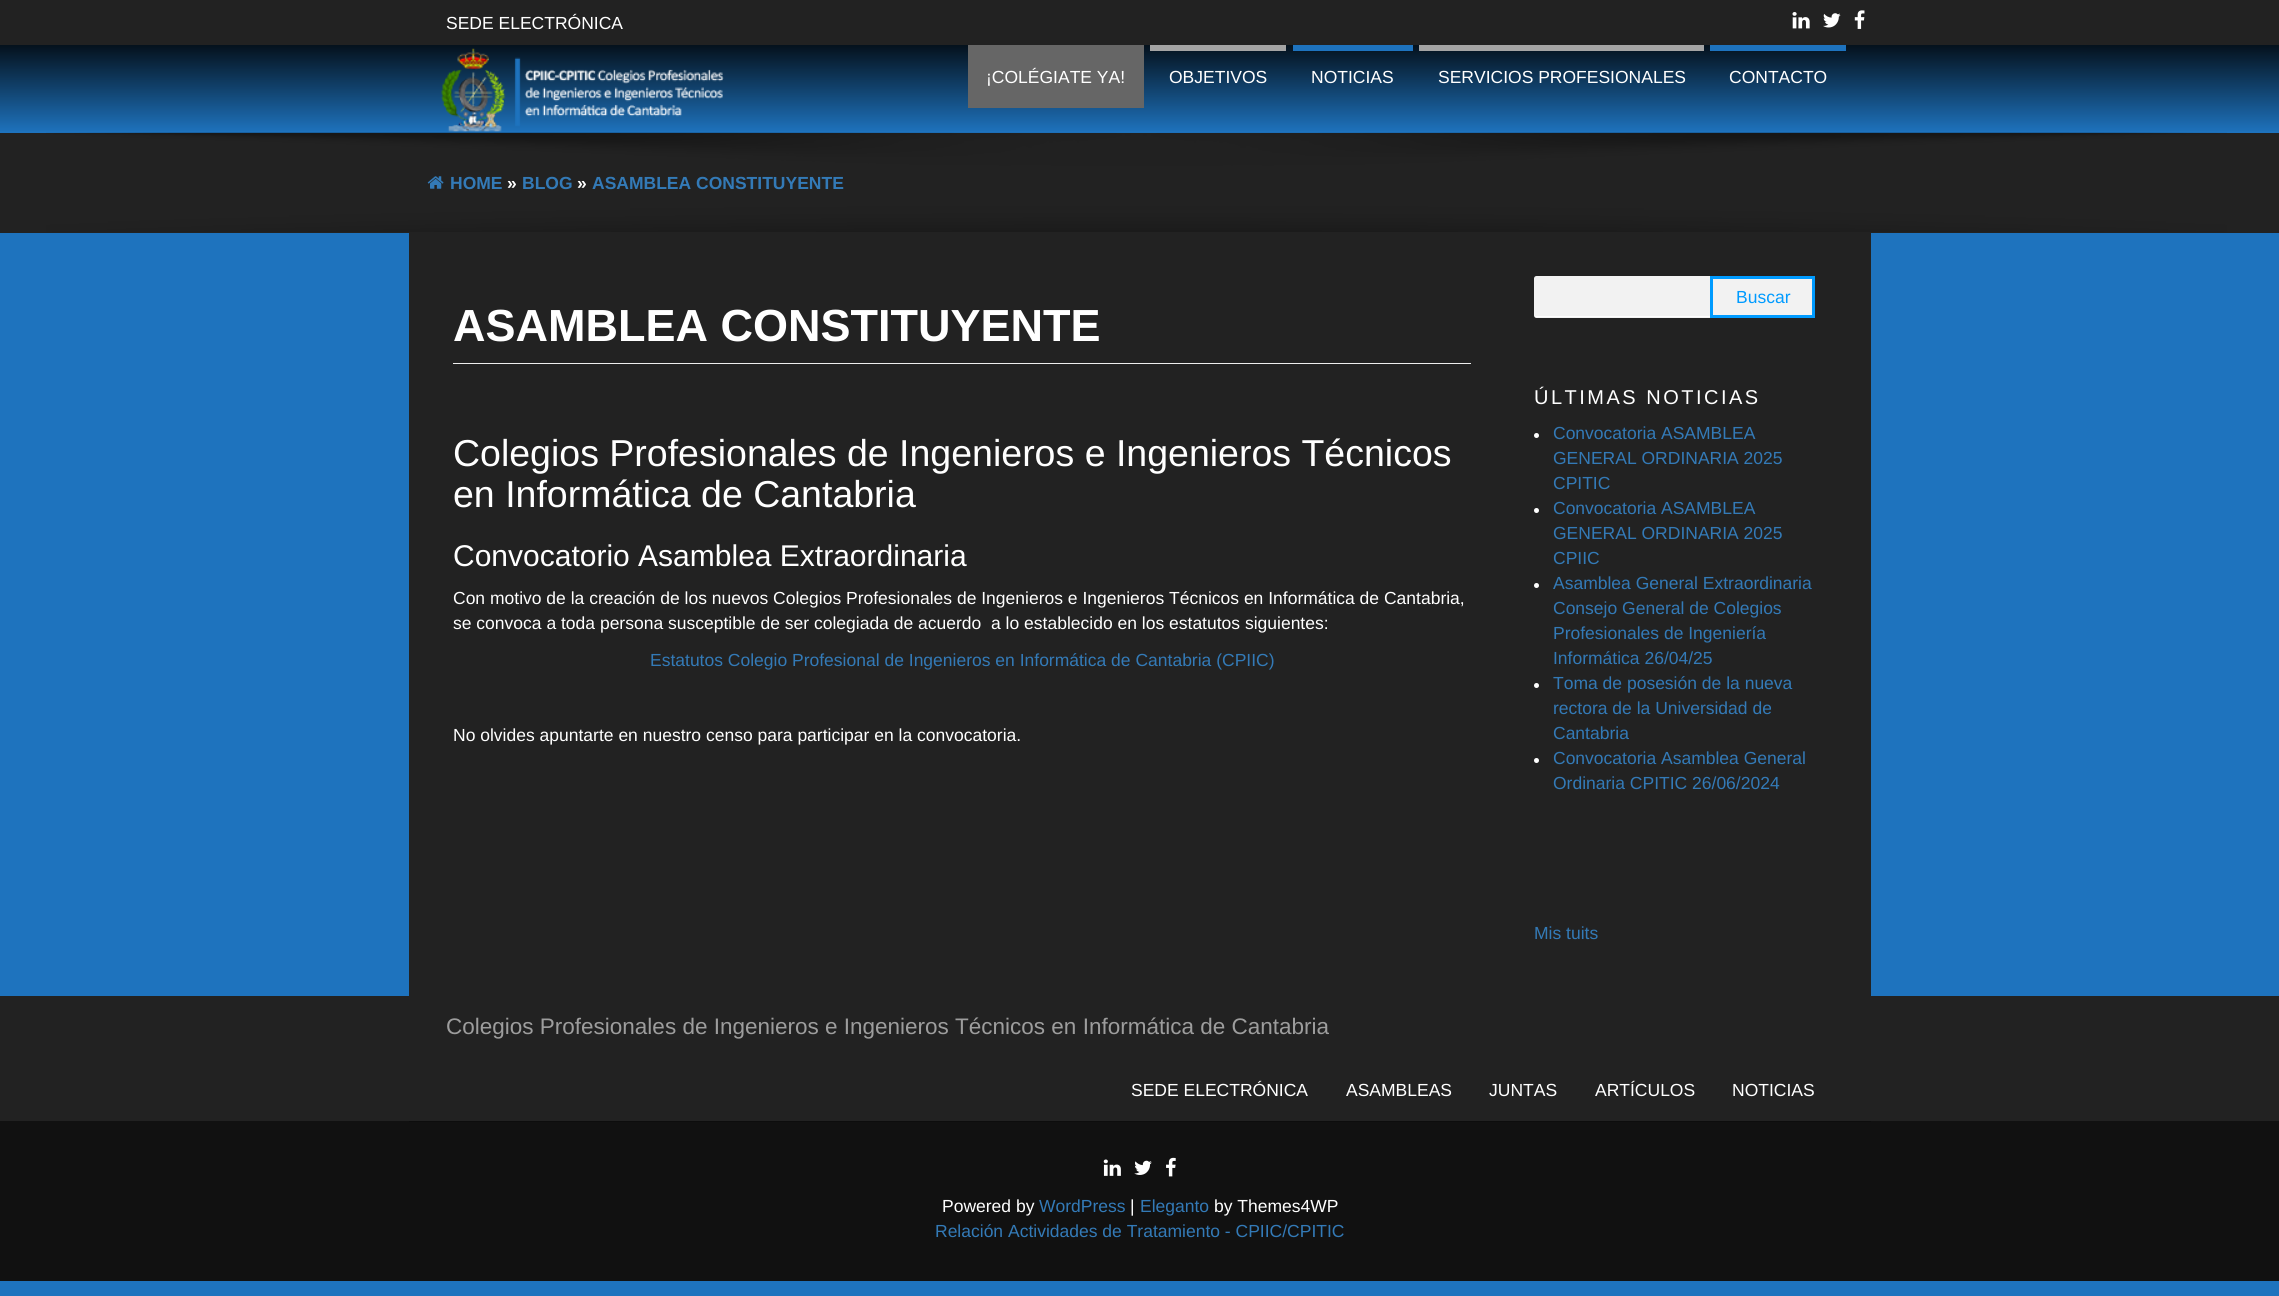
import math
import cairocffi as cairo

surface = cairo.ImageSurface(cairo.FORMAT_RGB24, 2279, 1296)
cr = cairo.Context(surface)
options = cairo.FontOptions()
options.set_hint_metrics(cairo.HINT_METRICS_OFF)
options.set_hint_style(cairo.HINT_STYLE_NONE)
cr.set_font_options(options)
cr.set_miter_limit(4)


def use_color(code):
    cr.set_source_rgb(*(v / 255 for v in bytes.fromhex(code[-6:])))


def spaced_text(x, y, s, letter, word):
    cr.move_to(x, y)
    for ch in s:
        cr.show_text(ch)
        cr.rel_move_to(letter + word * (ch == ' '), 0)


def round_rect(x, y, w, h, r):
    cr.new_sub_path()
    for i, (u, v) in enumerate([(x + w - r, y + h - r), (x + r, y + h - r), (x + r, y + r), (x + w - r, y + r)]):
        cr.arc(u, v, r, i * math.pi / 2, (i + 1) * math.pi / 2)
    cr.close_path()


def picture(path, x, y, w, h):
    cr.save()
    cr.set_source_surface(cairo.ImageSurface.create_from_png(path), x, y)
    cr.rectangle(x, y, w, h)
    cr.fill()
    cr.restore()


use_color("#1e73be")
cr.paint()
use_color("#222222")
cr.rectangle(0, 0, 2279, 45)
cr.fill()
cr.select_font_face("Liberation Sans")
cr.set_font_size(17.5)
use_color("#ffffff")
cr.move_to(446, 29)
cr.show_text("SEDE ELECTRÓNICA")
picture("img1.png", 1792, 12, 18, 17)
picture("img2.png", 1823, 13, 18, 15)
picture("img3.png", 1854, 10, 11, 19)
gradient = cairo.LinearGradient(1140, 45, 1140, 133)
gradient.add_color_stop_rgba(0, 0, 0, 0, 0.85)
gradient.add_color_stop_rgba(1, 0, 0, 0, 0)
cr.set_source(gradient)
cr.rectangle(0, 45, 2279, 86)
cr.fill()
picture("img4.png", 441, 48, 283, 84)
use_color("#666666")
cr.rectangle(968, 45, 176, 63)
cr.fill()
use_color("#ffffff")
cr.move_to(986, 83)
cr.show_text("¡COLÉGIATE YA!")
use_color("#a4a4a4")
cr.rectangle(1150, 45, 136, 6)
cr.fill()
use_color("#ffffff")
cr.move_to(1169, 83)
cr.show_text("OBJETIVOS")
use_color("#1e73be")
cr.rectangle(1293, 45, 120, 6)
cr.fill()
use_color("#ffffff")
cr.move_to(1311, 83)
cr.show_text("NOTICIAS")
use_color("#a4a4a4")
cr.rectangle(1419, 45, 285, 6)
cr.fill()
use_color("#ffffff")
cr.move_to(1438, 83)
cr.show_text("SERVICIOS PROFESIONALES")
use_color("#1e73be")
cr.rectangle(1710, 45, 136, 6)
cr.fill()
use_color("#ffffff")
cr.move_to(1729, 83)
cr.show_text("CONTACTO")
use_color("#222222")
cr.rectangle(0, 133, 2279, 100)
cr.fill()
picture("img5.png", 46, 132, 2181, 100)
picture("img6.png", 427, 176, 17, 13)
cr.select_font_face("Liberation Sans", cairo.FONT_SLANT_NORMAL, cairo.FONT_WEIGHT_BOLD)
use_color("#337ab7")
cr.move_to(450, 189)
cr.show_text("HOME")
use_color("#ffffff")
cr.move_to(507, 189)
cr.show_text("»")
use_color("#337ab7")
cr.move_to(522, 189)
cr.show_text("BLOG")
use_color("#ffffff")
cr.move_to(577, 189)
cr.show_text("»")
use_color("#337ab7")
cr.move_to(592, 189)
cr.show_text("ASAMBLEA CONSTITUYENTE")
use_color("#222222")
cr.rectangle(409, 233, 1462, 763)
cr.fill()
use_color("#eeeeee")
cr.rectangle(453, 363, 1018, 1)
cr.fill()
cr.set_font_size(45)
use_color("#ffffff")
cr.move_to(453, 341)
cr.show_text("ASAMBLEA CONSTITUYENTE")
cr.select_font_face("Liberation Sans")
cr.set_font_size(37.5)
cr.move_to(453, 466)
cr.show_text("Colegios Profesionales de Ingenieros e Ingenieros Técnicos")
cr.move_to(453, 507)
cr.show_text("en Informática de Cantabria")
cr.set_font_size(30)
cr.move_to(453, 566)
cr.show_text("Convocatorio Asamblea Extraordinaria")
cr.set_font_size(17.5)
cr.move_to(453, 604)
cr.show_text("Con motivo de la creación de los nuevos Colegios Profesionales de Ingenieros e Ingenieros Técnicos en Informática de Cantabria,")
cr.move_to(453, 629)
cr.show_text("se convoca a toda persona susceptible de ser colegiada de acuerdo  a lo establecido en los estatutos siguientes:")
use_color("#337ab7")
cr.move_to(650, 666)
cr.show_text("Estatutos Colegio Profesional de Ingenieros en Informática de Cantabria (CPIIC)")
use_color("#ffffff")
cr.move_to(453, 741)
cr.show_text("No olvides apuntarte en nuestro censo para participar en la convocatoria.")
use_color("#f2f2f2")
round_rect(1534, 276, 281, 42, 2.5)
cr.fill()
use_color("#ffffff")
cr.rectangle(1535, 316, 175, 1)
cr.fill()
cr.rectangle(1711.5, 277.5, 102, 39)
use_color("#009bff")
cr.set_line_width(3)
cr.stroke()
cr.move_to(1736, 303)
cr.show_text("Buscar")
cr.set_font_size(20)
use_color("#ffffff")
spaced_text(1534, 404, "ÚLTIMAS NOTICIAS", 2.5, 0)
cr.new_path()
cr.arc(1536.5, 435.5, 2.5, 0, 2 * math.pi)
cr.fill()
cr.set_font_size(17.5)
use_color("#337ab7")
cr.move_to(1553, 439)
cr.show_text("Convocatoria ASAMBLEA")
cr.move_to(1553, 464)
cr.show_text("GENERAL ORDINARIA 2025")
cr.move_to(1553, 489)
cr.show_text("CPITIC")
use_color("#ffffff")
cr.new_path()
cr.arc(1536.5, 510.5, 2.5, 0, 2 * math.pi)
cr.fill()
use_color("#337ab7")
cr.move_to(1553, 514)
cr.show_text("Convocatoria ASAMBLEA")
cr.move_to(1553, 539)
cr.show_text("GENERAL ORDINARIA 2025")
cr.move_to(1553, 564)
cr.show_text("CPIIC")
use_color("#ffffff")
cr.new_path()
cr.arc(1536.5, 585.5, 2.5, 0, 2 * math.pi)
cr.fill()
use_color("#337ab7")
cr.move_to(1553, 589)
cr.show_text("Asamblea General Extraordinaria")
cr.move_to(1553, 614)
cr.show_text("Consejo General de Colegios")
cr.move_to(1553, 639)
cr.show_text("Profesionales de Ingeniería")
cr.move_to(1553, 664)
cr.show_text("Informática 26/04/25")
use_color("#ffffff")
cr.new_path()
cr.arc(1536.5, 685.5, 2.5, 0, 2 * math.pi)
cr.fill()
use_color("#337ab7")
cr.move_to(1553, 689)
cr.show_text("Toma de posesión de la nueva")
cr.move_to(1553, 714)
cr.show_text("rectora de la Universidad de")
cr.move_to(1553, 739)
cr.show_text("Cantabria")
use_color("#ffffff")
cr.new_path()
cr.arc(1536.5, 760.5, 2.5, 0, 2 * math.pi)
cr.fill()
use_color("#337ab7")
cr.move_to(1553, 764)
cr.show_text("Convocatoria Asamblea General")
cr.move_to(1553, 789)
cr.show_text("Ordinaria CPITIC 26/06/2024")
cr.move_to(1534, 939)
cr.show_text("Mis tuits")
use_color("#222222")
cr.rectangle(0, 996, 2279, 125)
cr.fill()
cr.set_font_size(22.5)
use_color("#9d9d9d")
cr.move_to(446, 1034)
cr.show_text("Colegios Profesionales de Ingenieros e Ingenieros Técnicos en Informática de Cantabria")
cr.set_font_size(17.5)
use_color("#ffffff")
cr.move_to(1131, 1096)
cr.show_text("SEDE ELECTRÓNICA")
cr.move_to(1346, 1096)
cr.show_text("ASAMBLEAS")
cr.move_to(1489, 1096)
cr.show_text("JUNTAS")
cr.move_to(1595, 1096)
cr.show_text("ARTÍCULOS")
cr.move_to(1732, 1096)
cr.show_text("NOTICIAS")
use_color("#111111")
cr.rectangle(0, 1121, 2279, 160)
cr.fill()
use_color("#0d0d0d")
cr.rectangle(409, 1121, 1462, 1)
cr.fill()
picture("img7.png", 1103, 1159, 18, 17)
picture("img8.png", 1134, 1160, 18, 15)
picture("img9.png", 1166, 1157, 10, 20)
use_color("#ffffff")
cr.move_to(942, 1212)
cr.show_text("Powered by")
use_color("#337ab7")
cr.move_to(1039, 1212)
cr.show_text("WordPress")
use_color("#ffffff")
cr.move_to(1130, 1212)
cr.show_text("|")
use_color("#337ab7")
cr.move_to(1140, 1212)
cr.show_text("Eleganto")
use_color("#ffffff")
cr.move_to(1214, 1212)
cr.show_text("by Themes4WP")
use_color("#337ab7")
cr.move_to(935, 1237)
cr.show_text("Relación Actividades de Tratamiento - CPIIC/CPITIC")
surface.write_to_png("result.png")
